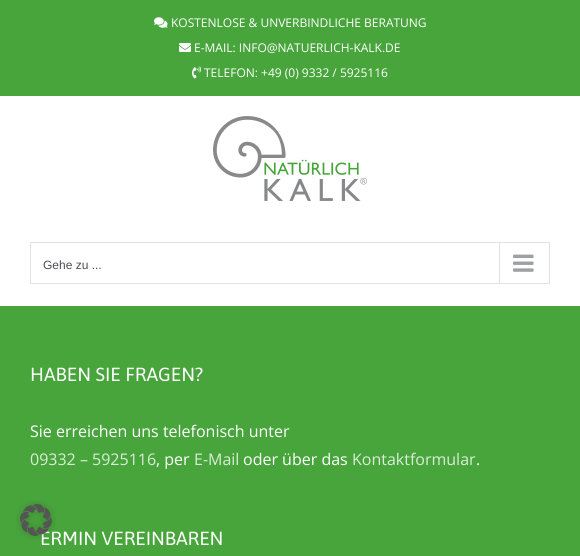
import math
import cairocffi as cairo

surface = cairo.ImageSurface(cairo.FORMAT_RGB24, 580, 556)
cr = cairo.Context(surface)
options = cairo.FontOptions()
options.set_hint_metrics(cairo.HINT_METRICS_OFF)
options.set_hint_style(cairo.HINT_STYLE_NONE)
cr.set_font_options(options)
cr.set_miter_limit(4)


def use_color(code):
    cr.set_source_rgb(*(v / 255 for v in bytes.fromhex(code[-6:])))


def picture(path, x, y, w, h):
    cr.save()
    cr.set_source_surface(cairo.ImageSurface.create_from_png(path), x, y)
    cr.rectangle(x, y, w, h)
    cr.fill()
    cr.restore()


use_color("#ffffff")
cr.paint()
use_color("#48a53c")
cr.rectangle(0, 0, 580, 96)
cr.fill()
picture("img1.png", 154, 17, 14, 11)
cr.select_font_face("Open Sans")
cr.set_font_size(12)
use_color("#ffffff")
cr.move_to(171, 27)
cr.show_text("KOSTENLOSE & UNVERBINDLICHE BERATUNG")
picture("img2.png", 179, 43, 12, 9)
cr.move_to(194, 52)
cr.show_text("E-MAIL: INFO@NATUERLICH-KALK.DE")
picture("img3.png", 192, 66, 9, 13)
cr.move_to(204, 77)
cr.show_text("TELEFON: +49 (0) 9332 / 5925116")
picture("img4.png", 213, 116, 154, 85)
cr.rectangle(30.5, 242.5, 519, 41)
use_color("#e2e2e2")
cr.set_line_width(1)
cr.stroke()
cr.select_font_face("Liberation Sans")
use_color("#4a4e57")
cr.move_to(43, 269)
cr.show_text("Gehe zu ...")
use_color("#e2e2e2")
cr.rectangle(499, 243, 1, 40)
cr.fill()
picture("img5.png", 513, 254, 21, 18)
use_color("#48a53c")
cr.rectangle(0, 306, 580, 250)
cr.fill()
cr.select_font_face("Asap")
cr.set_font_size(19)
use_color("#ffffff")
cr.move_to(30, 381)
cr.show_text("HABEN SIE FRAGEN?")
cr.select_font_face("Open Sans")
cr.set_font_size(16)
cr.move_to(30, 437)
cr.show_text("Sie erreichen uns telefonisch unter")
use_color("#daedd8")
cr.move_to(30, 465)
cr.show_text("09332 – 5925116")
use_color("#ffffff")
cr.move_to(156, 465)
cr.show_text(", per")
use_color("#daedd8")
cr.move_to(194, 465)
cr.show_text("E-Mail")
use_color("#ffffff")
cr.move_to(243, 465)
cr.show_text("oder über das")
use_color("#daedd8")
cr.move_to(352, 465)
cr.show_text("Kontaktformular")
use_color("#ffffff")
cr.move_to(476, 465)
cr.show_text(".")
cr.select_font_face("Asap")
cr.set_font_size(19)
cr.move_to(40, 545)
cr.show_text("ERMIN VEREINBAREN")
picture("img6.png", 16, 500, 40, 40)
surface.write_to_png("result.png")
